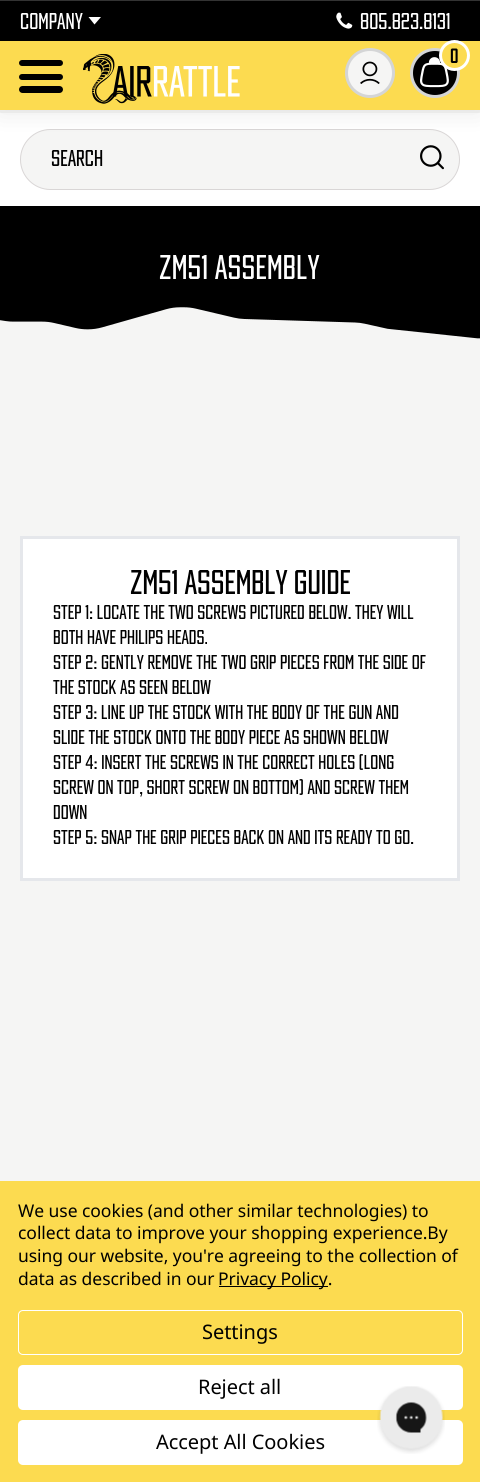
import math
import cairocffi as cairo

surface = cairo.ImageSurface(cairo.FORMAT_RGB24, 480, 1482)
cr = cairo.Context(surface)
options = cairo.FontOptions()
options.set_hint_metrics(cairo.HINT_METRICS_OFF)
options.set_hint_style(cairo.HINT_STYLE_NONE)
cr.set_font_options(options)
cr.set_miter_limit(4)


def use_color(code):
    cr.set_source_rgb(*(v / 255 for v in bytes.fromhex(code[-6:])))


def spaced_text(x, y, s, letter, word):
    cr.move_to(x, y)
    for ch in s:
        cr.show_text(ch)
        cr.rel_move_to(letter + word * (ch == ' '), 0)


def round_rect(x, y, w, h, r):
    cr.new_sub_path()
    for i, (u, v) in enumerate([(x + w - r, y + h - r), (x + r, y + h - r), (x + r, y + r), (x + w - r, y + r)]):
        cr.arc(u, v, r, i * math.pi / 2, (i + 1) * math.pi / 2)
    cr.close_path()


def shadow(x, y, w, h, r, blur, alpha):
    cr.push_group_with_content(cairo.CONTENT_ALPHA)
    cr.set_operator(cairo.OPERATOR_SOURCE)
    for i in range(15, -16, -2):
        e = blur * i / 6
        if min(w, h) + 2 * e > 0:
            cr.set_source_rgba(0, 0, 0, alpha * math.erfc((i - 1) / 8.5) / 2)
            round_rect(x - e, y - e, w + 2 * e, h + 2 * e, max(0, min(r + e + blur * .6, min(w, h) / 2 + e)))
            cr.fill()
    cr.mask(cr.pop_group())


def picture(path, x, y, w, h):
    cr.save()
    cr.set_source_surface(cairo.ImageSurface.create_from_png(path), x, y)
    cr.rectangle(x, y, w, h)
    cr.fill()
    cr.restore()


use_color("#f5f5f4")
cr.paint()
use_color("#ffffff")
cr.rectangle(0, 113, 480, 93)
cr.fill()
use_color("#f5f5f4")
round_rect(20.5, 129.5, 439, 60, 30)
cr.fill_preserve()
use_color("#d9d6d6")
cr.set_line_width(1)
cr.stroke()
picture("img5.png", 420, 145, 24, 25)
use_color("#080808")
shadow(0, 3, 480, 110, 0, 12.5, 0.08)
use_color("#333333")
cr.rectangle(0, 0, 480, 1)
cr.fill()
use_color("#000000")
cr.rectangle(0, 1, 480, 40)
cr.fill()
cr.select_font_face("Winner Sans")
cr.set_font_size(20)
use_color("#ffffff")
cr.move_to(20, 29)
cr.show_text("COMPANY")
cr.new_path()
cr.move_to(94.5, 24.5)
cr.line_to(88.5, 17)
cr.line_to(101, 17)
cr.close_path()
cr.fill()
picture("img1.png", 336, 12, 17, 17)
cr.move_to(360, 29)
cr.show_text("805.823.8131")
use_color("#fcdb50")
cr.rectangle(0, 41, 480, 69)
cr.fill()
use_color("#000000")
round_rect(19, 60, 44, 6, 3)
cr.fill()
round_rect(19, 74, 44, 6, 3)
cr.fill()
round_rect(19, 86, 44, 7, 3.5)
cr.fill()
picture("img2.png", 83, 54, 157, 50)
use_color("#f5f5f4")
cr.arc(370, 73, 23.5, 0, 2 * math.pi)
cr.fill_preserve()
use_color("#d4d5d6")
cr.set_line_width(3)
cr.stroke()
picture("img3.png", 360, 61, 20, 23)
use_color("#000000")
cr.arc(435, 73, 23.5, 0, 2 * math.pi)
cr.fill_preserve()
use_color("#d4d5d6")
cr.stroke()
picture("img4.png", 420, 57, 29, 31)
use_color("#fcdb50")
cr.arc(454.5, 55.5, 14, 0, 2 * math.pi)
cr.fill_preserve()
use_color("#ffffff")
cr.stroke()
cr.select_font_face("Winner Sans", cairo.FONT_SLANT_NORMAL, cairo.FONT_WEIGHT_BOLD)
cr.set_font_size(17.5)
use_color("#000000")
cr.move_to(450, 63)
cr.show_text("0")
cr.select_font_face("Winner Sans")
cr.set_font_size(20)
cr.move_to(51, 166)
cr.show_text("Search")
cr.rectangle(0, 206, 480, 133)
cr.fill()
cr.set_font_size(30)
use_color("#ffffff")
spaced_text(159, 279, "ZM51 ASSEMBLY", 0.25, 0)
picture("img6.png", 0, 307, 480, 49)
cr.rectangle(21.5, 537.5, 437, 342)
cr.fill_preserve()
use_color("#e5e7eb")
cr.stroke()
use_color("#000000")
cr.move_to(130, 594)
cr.show_text("ZM51 Assembly Guide")
cr.set_font_size(17.5)
cr.move_to(53, 619)
cr.show_text("Step 1: Locate the two screws pictured below. They will")
cr.move_to(53, 644)
cr.show_text("both have Philips heads.")
cr.move_to(53, 669)
cr.show_text("Step 2: Gently remove the two grip pieces from the side of")
cr.move_to(53, 694)
cr.show_text("the stock as seen below")
cr.move_to(53, 719)
cr.show_text("Step 3: Line up the stock with the body of the gun and")
cr.move_to(53, 744)
cr.show_text("slide the stock onto the body piece as shown below")
cr.move_to(53, 769)
cr.show_text("Step 4: Insert the screws in the correct holes (Long")
cr.move_to(53, 794)
cr.show_text("screw on top, short screw on bottom) and screw them")
cr.move_to(53, 819)
cr.show_text("down")
cr.move_to(53, 844)
cr.show_text("Step 5: Snap the grip pieces back on and its ready to go.")
use_color("#fcdb50")
cr.rectangle(0, 1181, 480, 301)
cr.fill()
cr.select_font_face("Noto Sans")
use_color("#000000")
spaced_text(18, 1217, "We use cookies (and other similar technologies) to", -0.05, 0)
spaced_text(18, 1239, "collect data to improve your shopping experience.By", -0.05, 0)
spaced_text(18, 1262, "using our website, you're agreeing to the collection of", -0.05, 0)
spaced_text(18, 1285, "data as described in our", -0.05, 0)
cr.rectangle(219, 1286, 109, 1)
cr.fill()
spaced_text(218, 1285, "Privacy Policy.", -0.05, 0)
round_rect(18.5, 1310.5, 444, 44, 4.5)
use_color("#ffffff")
cr.set_line_width(1)
cr.stroke()
cr.set_font_size(20)
use_color("#000000")
spaced_text(202, 1339, "Settings", -0.05, 0)
use_color("#ffffff")
round_rect(18, 1365, 445, 45, 5)
cr.fill()
use_color("#000000")
spaced_text(198, 1394, "Reject all", -0.05, 0)
use_color("#ffffff")
round_rect(18, 1420, 445, 45, 5)
cr.fill()
use_color("#000000")
spaced_text(156, 1449, "Accept All Cookies", -0.05, 0)
picture("img7.png", 377, 1386, 68, 68)
surface.write_to_png("result.png")
